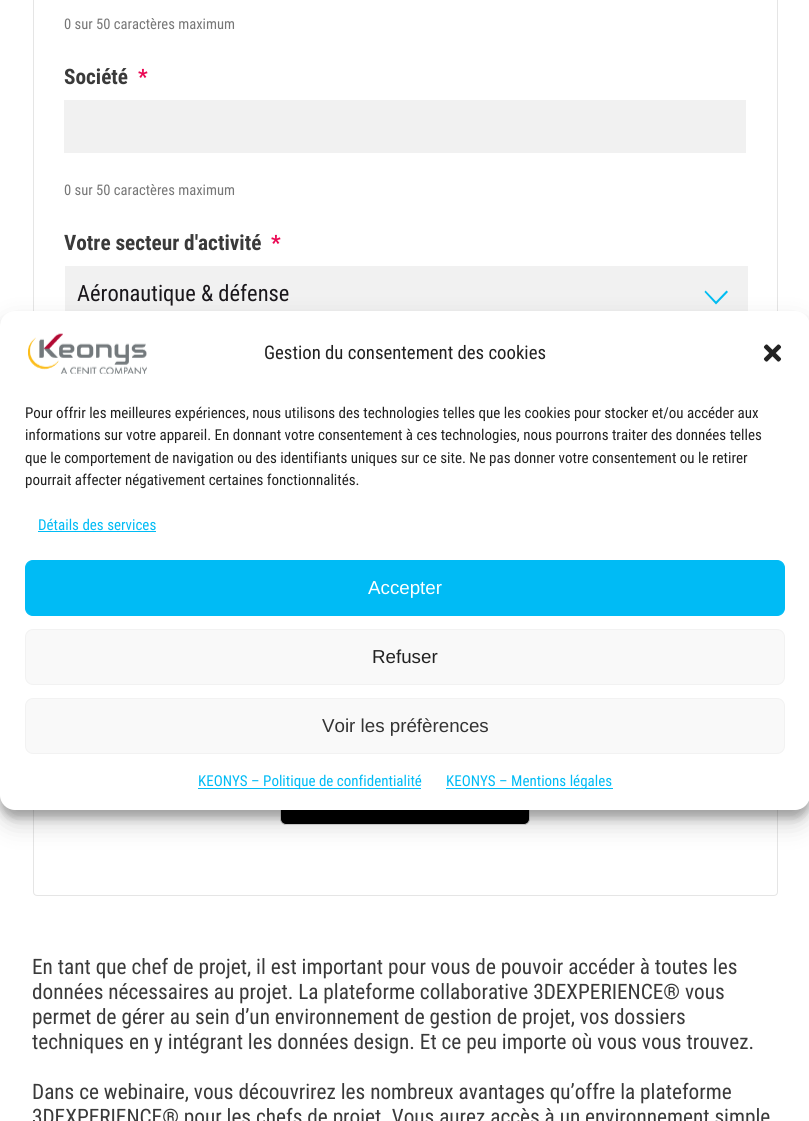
import math
import cairocffi as cairo

surface = cairo.ImageSurface(cairo.FORMAT_RGB24, 809, 1121)
cr = cairo.Context(surface)
options = cairo.FontOptions()
options.set_hint_metrics(cairo.HINT_METRICS_OFF)
options.set_hint_style(cairo.HINT_STYLE_NONE)
cr.set_font_options(options)
cr.set_miter_limit(4)


def use_color(code):
    cr.set_source_rgb(*(v / 255 for v in bytes.fromhex(code[-6:])))


def round_rect(x, y, w, h, r):
    cr.new_sub_path()
    for i, (u, v) in enumerate([(x + w - r, y + h - r), (x + r, y + h - r), (x + r, y + r), (x + w - r, y + r)]):
        cr.arc(u, v, r, i * math.pi / 2, (i + 1) * math.pi / 2)
    cr.close_path()


def shadow(x, y, w, h, r, blur, alpha):
    cr.push_group_with_content(cairo.CONTENT_ALPHA)
    cr.set_operator(cairo.OPERATOR_SOURCE)
    for i in range(15, -16, -2):
        e = blur * i / 6
        if min(w, h) + 2 * e > 0:
            cr.set_source_rgba(0, 0, 0, alpha * math.erfc((i - 1) / 8.5) / 2)
            round_rect(x - e, y - e, w + 2 * e, h + 2 * e, max(0, min(r + e + blur * .6, min(w, h) / 2 + e)))
            cr.fill()
    cr.mask(cr.pop_group())


def picture(path, x, y, w, h):
    cr.save()
    cr.set_source_surface(cairo.ImageSurface.create_from_png(path), x, y)
    cr.rectangle(x, y, w, h)
    cr.fill()
    cr.restore()


use_color("#ffffff")
cr.paint()
round_rect(33.5, -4.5, 744, 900, 3.5)
use_color("#e5e5e5")
cr.set_line_width(1)
cr.stroke()
cr.select_font_face("Roboto Condensed")
cr.set_font_size(14.6)
use_color("#767676")
cr.move_to(64, 29)
cr.show_text("0 sur 50 caractères maximum")
cr.select_font_face("Roboto Condensed", cairo.FONT_SLANT_NORMAL, cairo.FONT_WEIGHT_BOLD)
cr.set_font_size(21.25)
use_color("#3a3a3a")
cr.move_to(64, 84)
cr.show_text("Société")
use_color("#ea0853")
cr.move_to(138, 84)
cr.show_text("*")
use_color("#f1f1f1")
cr.rectangle(64, 100, 682, 53)
cr.fill()
cr.select_font_face("Roboto Condensed")
cr.set_font_size(14.6)
use_color("#767676")
cr.move_to(64, 195)
cr.show_text("0 sur 50 caractères maximum")
cr.select_font_face("Roboto Condensed", cairo.FONT_SLANT_NORMAL, cairo.FONT_WEIGHT_BOLD)
cr.set_font_size(21.25)
use_color("#3a3a3a")
cr.move_to(64, 250)
cr.show_text("Votre secteur d'activité")
use_color("#ea0853")
cr.move_to(271, 250)
cr.show_text("*")
use_color("#f1f1f1")
cr.rectangle(65, 266, 683, 45)
cr.fill()
use_color("#00bdf2")
cr.new_path()
cr.move_to(726.5, 290.5)
cr.line_to(728, 292)
cr.line_to(716, 304.5)
cr.line_to(704.5, 292)
cr.line_to(705.5, 290.5)
cr.line_to(716, 301.5)
cr.close_path()
cr.fill()
cr.select_font_face("Roboto Condensed")
cr.set_font_size(22.5)
use_color("#1a171b")
cr.move_to(77, 301)
cr.show_text("Aéronautique & défense")
use_color("#000000")
round_rect(280.5, 773.5, 249, 51, 5.5)
cr.fill_preserve()
use_color("#dadada")
cr.stroke()
cr.set_font_size(21.25)
use_color("#3a3a3a")
cr.move_to(32, 974)
cr.show_text("En tant que chef de projet, il est important pour vous de pouvoir accéder à toutes les")
cr.move_to(32, 999)
cr.show_text("données nécessaires au projet. La plateforme collaborative 3DEXPERIENCE® vous")
cr.move_to(32, 1024)
cr.show_text("permet de gérer au sein d’un environnement de gestion de projet, vos dossiers")
cr.move_to(32, 1049)
cr.show_text("techniques en y intégrant les données design. Et ce peu importe où vous vous trouvez.")
cr.move_to(32, 1099)
cr.show_text("Dans ce webinaire, vous découvrirez les nombreux avantages qu’offre la plateforme")
cr.move_to(32, 1124)
cr.show_text("3DEXPERIENCE® pour les chefs de projet. Vous aurez accès à un environnement simple")
use_color("#000000")
shadow(0, 319, 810, 499, 15, 4, 0.23)
shadow(0, 324, 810, 499, 15, 12.5, 0.19)
use_color("#ffffff")
round_rect(0, 311, 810, 499, 15)
cr.fill()
picture("img1.png", 28, 333, 119, 41)
cr.set_font_size(18.75)
use_color("#222222")
cr.move_to(264, 359)
cr.show_text("Gestion du consentement des cookies")
picture("img2.png", 763, 344, 19, 18)
cr.set_font_size(15)
cr.move_to(25, 418)
cr.show_text("Pour offrir les meilleures expériences, nous utilisons des technologies telles que les cookies pour stocker et/ou accéder aux")
cr.move_to(25, 440)
cr.show_text("informations sur votre appareil. En donnant votre consentement à ces technologies, nous pourrons traiter des données telles")
cr.move_to(25, 463)
cr.show_text("que le comportement de navigation ou des identifiants uniques sur ce site. Ne pas donner votre consentement ou le retirer")
cr.move_to(25, 485)
cr.show_text("pourrait affecter négativement certaines fonctionnalités.")
use_color("#00bbf5")
cr.move_to(38, 530)
cr.show_text("Détails des services")
cr.rectangle(38, 531, 118, 1)
cr.fill()
round_rect(25.5, 560.5, 759, 55, 7.5)
cr.fill_preserve()
cr.stroke()
cr.select_font_face("Liberation Sans")
cr.set_font_size(18.75)
use_color("#ffffff")
cr.move_to(368, 594)
cr.show_text("Accepter")
use_color("#f9f9f9")
round_rect(25.5, 629.5, 759, 55, 7.5)
cr.fill_preserve()
use_color("#f2f2f2")
cr.stroke()
use_color("#222222")
cr.move_to(372, 663)
cr.show_text("Refuser")
use_color("#f9f9f9")
round_rect(25.5, 698.5, 759, 55, 7.5)
cr.fill_preserve()
use_color("#f2f2f2")
cr.stroke()
use_color("#333333")
cr.move_to(322, 732)
cr.show_text("Voir les préfèrences")
use_color("#00bbf5")
cr.rectangle(198, 788, 223, 1)
cr.fill()
cr.select_font_face("Roboto Condensed")
cr.set_font_size(15)
cr.move_to(198, 786)
cr.show_text("KEONYS – Politique de confidentialité")
cr.rectangle(446, 788, 167, 1)
cr.fill()
cr.move_to(446, 786)
cr.show_text("KEONYS – Mentions légales")
surface.write_to_png("result.png")
